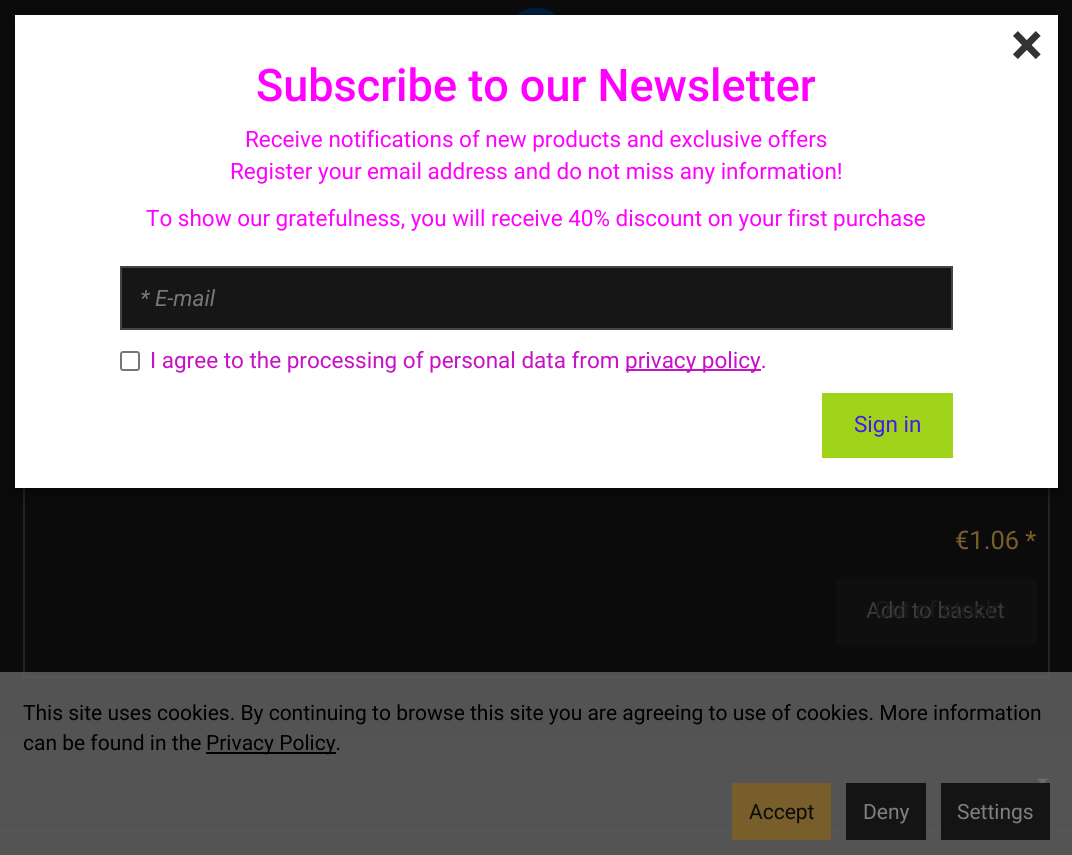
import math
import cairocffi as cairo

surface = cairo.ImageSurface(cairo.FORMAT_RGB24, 1072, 855)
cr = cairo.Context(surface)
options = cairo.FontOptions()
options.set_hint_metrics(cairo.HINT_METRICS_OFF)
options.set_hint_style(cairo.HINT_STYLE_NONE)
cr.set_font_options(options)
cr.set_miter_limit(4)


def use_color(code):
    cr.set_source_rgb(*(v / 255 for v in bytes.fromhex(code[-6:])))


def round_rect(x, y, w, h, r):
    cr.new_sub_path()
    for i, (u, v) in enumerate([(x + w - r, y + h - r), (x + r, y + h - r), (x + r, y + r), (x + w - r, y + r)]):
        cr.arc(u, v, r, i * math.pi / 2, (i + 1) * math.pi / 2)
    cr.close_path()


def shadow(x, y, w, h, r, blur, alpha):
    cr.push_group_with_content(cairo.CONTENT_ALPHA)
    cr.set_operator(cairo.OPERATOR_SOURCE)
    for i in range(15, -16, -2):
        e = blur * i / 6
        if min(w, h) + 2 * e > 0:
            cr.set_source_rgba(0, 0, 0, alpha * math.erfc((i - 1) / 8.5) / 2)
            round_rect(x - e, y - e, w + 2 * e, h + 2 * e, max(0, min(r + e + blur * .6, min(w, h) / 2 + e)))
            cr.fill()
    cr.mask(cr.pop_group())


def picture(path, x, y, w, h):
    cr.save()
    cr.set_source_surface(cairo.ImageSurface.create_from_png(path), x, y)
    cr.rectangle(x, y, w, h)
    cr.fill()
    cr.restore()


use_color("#0b0b0b")
cr.paint()
picture("img1.png", 516, 7, 40, 8)
cr.rectangle(24, 250, 1025, 427)
use_color("#232323")
cr.stroke()
use_color("#000000")
shadow(15, 20, 1043, 472, 0, 7, 0.5)
use_color("#ffffff")
cr.rectangle(15, 15, 1043, 473)
cr.fill()
cr.select_font_face("Roboto", cairo.FONT_SLANT_NORMAL, cairo.FONT_WEIGHT_BOLD)
cr.set_font_size(60)
use_color("#333333")
cr.move_to(1011, 65)
cr.show_text("×")
cr.select_font_face("Roboto Medium")
cr.set_font_size(45)
use_color("#ff00ff")
cr.move_to(256, 101)
cr.show_text("Subscribe to our Newsletter")
cr.select_font_face("Roboto")
cr.set_font_size(22.5)
cr.move_to(245, 147)
cr.show_text("Receive notifications of new products and exclusive offers")
cr.move_to(230, 179)
cr.show_text("Register your email address and do not miss any information!")
cr.move_to(146, 226)
cr.show_text("To show our gratefulness, you will receive 40% discount on your first purchase")
use_color("#161616")
cr.rectangle(121, 267, 831, 62)
cr.fill_preserve()
use_color("#454545")
cr.stroke()
cr.select_font_face("Roboto", cairo.FONT_SLANT_ITALIC)
use_color("#777777")
cr.move_to(140, 306)
cr.show_text("* E-mail")
round_rect(121, 352, 18, 18, 2)
use_color("#767676")
cr.stroke()
cr.select_font_face("Roboto")
use_color("#c710c7")
cr.move_to(150, 368)
cr.show_text("I agree to the processing of personal data from")
cr.rectangle(626, 369, 135, 2)
cr.fill()
cr.move_to(625, 368)
cr.show_text("privacy policy.")
use_color("#9fd41a")
cr.rectangle(822, 393, 131, 65)
cr.fill()
use_color("#4817eb")
cr.move_to(854, 432)
cr.show_text("Sign in")
cr.set_font_size(25.5)
use_color("#785e2a")
cr.move_to(955, 549)
cr.show_text("€1.06 *")
use_color("#0f0f0f")
cr.rectangle(836, 579, 201, 66)
cr.fill()
cr.set_font_size(22.5)
use_color("#3a3a3a")
cr.move_to(866, 618)
cr.show_text("Add to basket")
use_color("#1b1b1b")
cr.move_to(875, 617)
cr.show_text("Out of stock")
use_color("#111111")
cr.rectangle(0, 738, 1072, 117)
cr.fill()
use_color("#191919")
cr.rectangle(0, 830, 1072, 2)
cr.fill()
use_color("#808080")
cr.new_path()
cr.move_to(1036.5, 778.5)
cr.line_to(1048.5, 778.5)
cr.line_to(1042.5, 784.5)
cr.close_path()
cr.fill()
cr.set_source_rgba(0.4, 0.4, 0.4, 0.8)
cr.rectangle(0, 672, 1072, 183)
cr.fill()
cr.set_font_size(21)
use_color("#000000")
cr.move_to(23, 720)
cr.show_text("This site uses cookies. By continuing to browse this site you are agreeing to use of cookies. More information")
cr.move_to(23, 750)
cr.show_text("can be found in the")
cr.rectangle(206, 752, 130, 2)
cr.fill()
cr.move_to(206, 750)
cr.show_text("Privacy Policy.")
use_color("#785e2a")
cr.rectangle(732, 783, 99, 57)
cr.fill()
use_color("#0b0b0b")
cr.move_to(749, 819)
cr.show_text("Accept")
use_color("#141414")
cr.rectangle(846, 783, 80, 57)
cr.fill()
use_color("#808080")
cr.move_to(863, 819)
cr.show_text("Deny")
use_color("#141414")
cr.rectangle(941, 783, 109, 57)
cr.fill()
use_color("#808080")
cr.move_to(957, 819)
cr.show_text("Settings")
surface.write_to_png("result.png")
